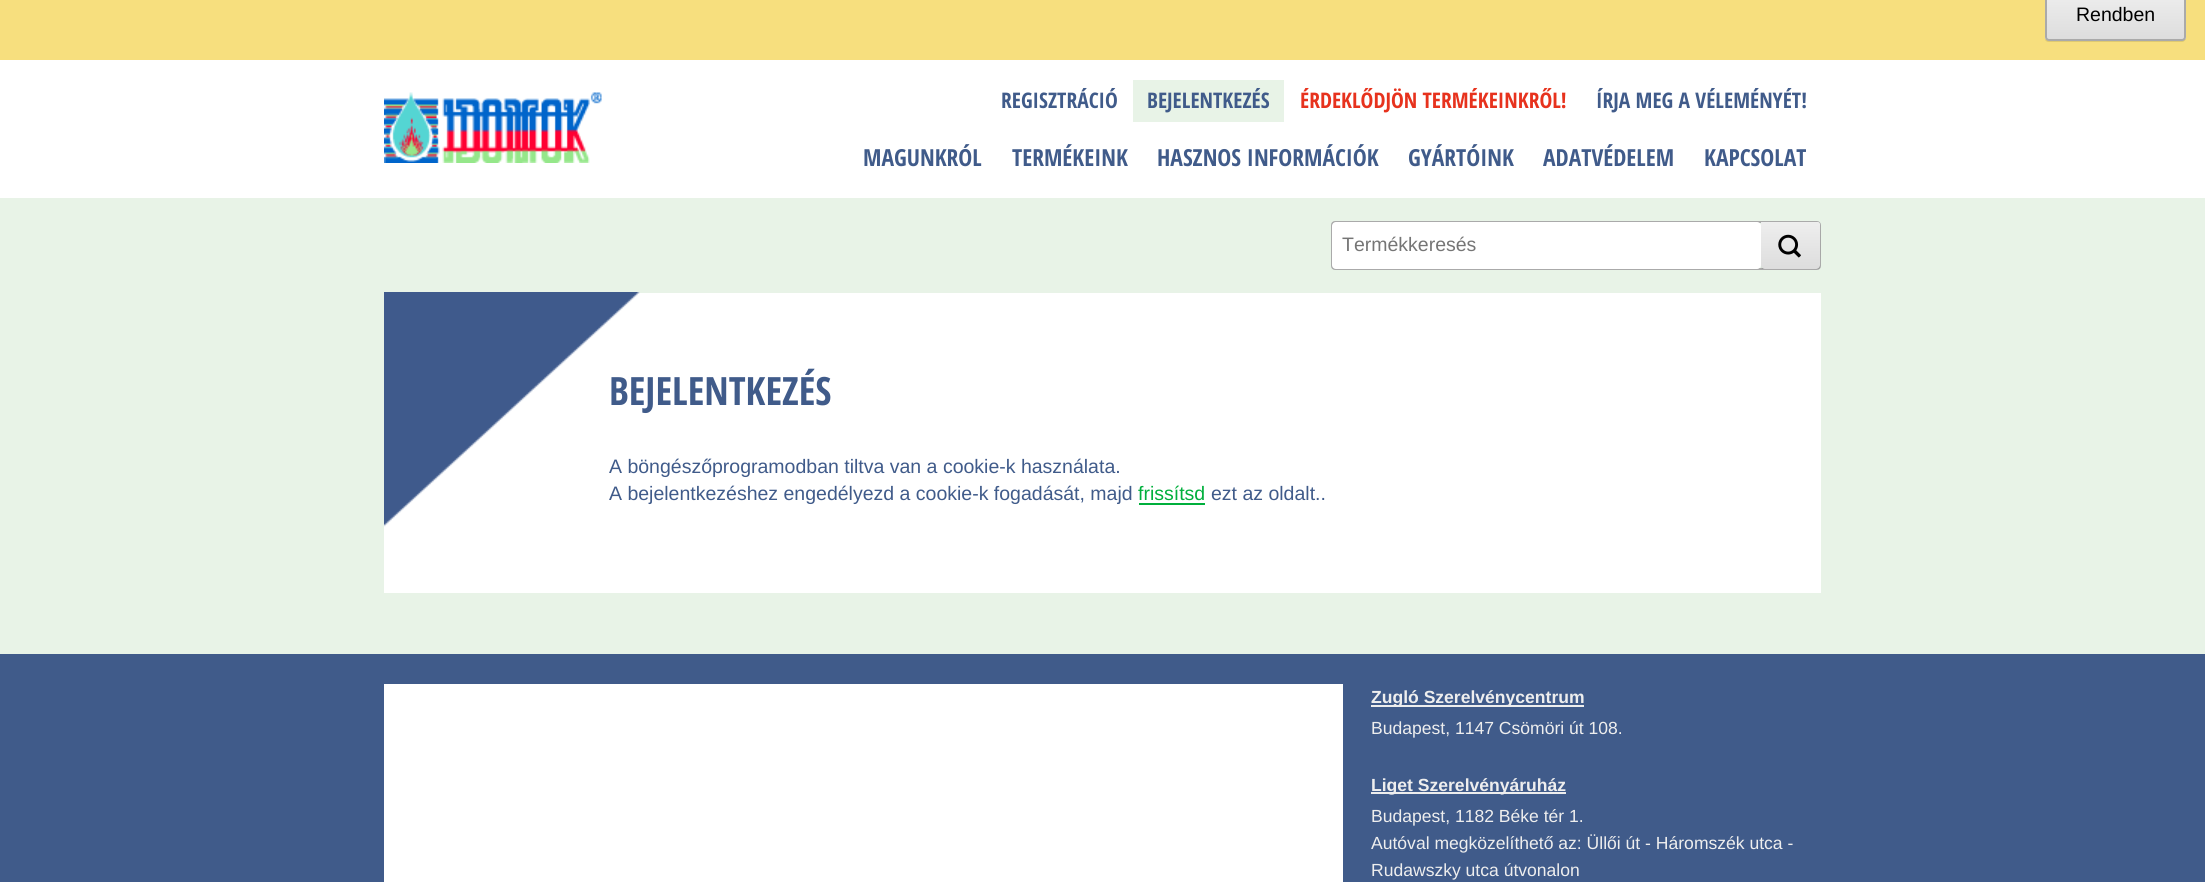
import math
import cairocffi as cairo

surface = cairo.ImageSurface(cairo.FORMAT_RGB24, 2205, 882)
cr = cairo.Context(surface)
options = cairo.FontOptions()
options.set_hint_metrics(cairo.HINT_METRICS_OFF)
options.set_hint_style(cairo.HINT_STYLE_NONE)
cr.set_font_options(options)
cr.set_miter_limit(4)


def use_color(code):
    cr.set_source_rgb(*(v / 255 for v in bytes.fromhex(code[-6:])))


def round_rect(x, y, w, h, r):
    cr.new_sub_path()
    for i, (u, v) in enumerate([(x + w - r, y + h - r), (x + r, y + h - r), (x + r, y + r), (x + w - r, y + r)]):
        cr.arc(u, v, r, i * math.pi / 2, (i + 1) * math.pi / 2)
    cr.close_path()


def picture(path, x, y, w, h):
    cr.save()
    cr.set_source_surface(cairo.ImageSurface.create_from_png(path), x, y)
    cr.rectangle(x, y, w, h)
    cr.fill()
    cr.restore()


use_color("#e8f3e7")
cr.paint()
use_color("#f7df7e")
cr.rectangle(0, 0, 2205, 60)
cr.fill()
use_color("#dec971")
cr.new_path()
cr.move_to(2045, 39)
cr.curve_to(2045, 41, 2047, 42, 2049, 42)
cr.line_to(2182, 42)
cr.curve_to(2184, 42, 2186, 40, 2186, 38)
cr.line_to(2186, -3)
cr.line_to(2186, -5)
cr.line_to(2186, 37)
cr.curve_to(2186, 39, 2184, 40, 2182, 40)
cr.line_to(2048, 40)
cr.curve_to(2047, 40, 2046, 40, 2045, 39)
cr.close_path()
cr.fill()
gradient = cairo.LinearGradient(2115, -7.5, 2115, 39)
gradient.add_color_stop_rgba(0, 0.933, 0.933, 0.933, 1)
gradient.add_color_stop_rgba(1, 0.867, 0.867, 0.867, 1)
cr.set_source(gradient)
cr.rectangle(2045, 0, 141, 39)
cr.fill()
round_rect(2046, -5, 139, 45, 3)
use_color("#aaaaaa")
cr.stroke()
cr.select_font_face("Liberation Sans")
cr.set_font_size(19.5)
use_color("#000000")
cr.move_to(2076, 21)
cr.show_text("Rendben")
use_color("#ffffff")
cr.rectangle(0, 60, 2205, 138)
cr.fill()
picture("img1.png", 384, 92, 218, 71)
cr.select_font_face("Open Sans Condensed", cairo.FONT_SLANT_NORMAL, cairo.FONT_WEIGHT_BOLD)
cr.set_font_size(21.5)
use_color("#405b8a")
cr.move_to(1001, 108)
cr.show_text("REGISZTRÁCIÓ")
use_color("#e8f3e7")
cr.rectangle(1133, 80, 151, 42)
cr.fill()
use_color("#405b8a")
cr.move_to(1147, 108)
cr.show_text("BEJELENTKEZÉS")
use_color("#e7321d")
cr.move_to(1300, 108)
cr.show_text("ÉRDEKLŐDJÖN TERMÉKEINKRŐL!")
use_color("#405b8a")
cr.move_to(1596, 108)
cr.show_text("ÍRJA MEG A VÉLEMÉNYÉT!")
cr.set_font_size(23.5)
cr.move_to(863, 166)
cr.show_text("MAGUNKRÓL")
cr.move_to(1012, 166)
cr.show_text("TERMÉKEINK")
cr.move_to(1157, 166)
cr.show_text("HASZNOS INFORMÁCIÓK")
cr.move_to(1408, 166)
cr.show_text("GYÁRTÓINK")
cr.move_to(1543, 166)
cr.show_text("ADATVÉDELEM")
cr.move_to(1704, 166)
cr.show_text("KAPCSOLAT")
round_rect(1332, 222, 488, 47, 3)
use_color("#aaaaaa")
cr.stroke()
use_color("#ffffff")
round_rect(1332, 222, 429, 47, 4)
cr.fill()
cr.select_font_face("Liberation Sans")
cr.set_font_size(19.5)
use_color("#757575")
cr.move_to(1342, 251)
cr.show_text("Termékkeresés")
cr.set_source_rgba(0, 0, 0, 0.1)
cr.new_path()
cr.move_to(1761, 265)
cr.curve_to(1761, 266, 1761, 268, 1762, 269)
cr.line_to(1809, 269)
cr.curve_to(1821, 269, 1820, 271, 1820, 259)
cr.line_to(1820, 224)
cr.curve_to(1820, 230, 1821, 264, 1819, 267)
cr.line_to(1816, 268)
cr.line_to(1764, 268)
cr.line_to(1762, 267)
cr.close_path()
cr.fill()
cr.save()
round_rect(1332, 222, 488, 47, 2)
cr.clip()
gradient = cairo.LinearGradient(1790, 222, 1790, 269)
gradient.add_color_stop_rgba(0, 0.933, 0.933, 0.933, 1)
gradient.add_color_stop_rgba(1, 0.867, 0.867, 0.867, 1)
cr.set_source(gradient)
cr.new_path()
cr.move_to(1761, 222)
cr.line_to(1818, 222)
cr.curve_to(1819, 222, 1820, 223, 1820, 224)
cr.line_to(1820, 265)
cr.curve_to(1820, 267, 1818, 269, 1816, 269)
cr.line_to(1765, 269)
cr.curve_to(1763, 269, 1761, 267, 1761, 265)
cr.close_path()
cr.fill()
cr.restore()
picture("img2.png", 1778, 234, 23, 24)
use_color("#ffffff")
cr.rectangle(384, 293, 1437, 300)
cr.fill()
picture("img3.png", 384, 292, 256, 235)
cr.select_font_face("Open Sans Condensed", cairo.FONT_SLANT_NORMAL, cairo.FONT_WEIGHT_BOLD)
cr.set_font_size(39)
use_color("#405b8a")
cr.move_to(609, 405)
cr.show_text("BEJELENTKEZÉS")
cr.select_font_face("Liberation Sans")
cr.set_font_size(19.5)
cr.move_to(609, 473)
cr.show_text("A böngészőprogramodban tiltva van a cookie-k használata.")
cr.move_to(609, 500)
cr.show_text("A bejelentkezéshez engedélyezd a cookie-k fogadását, majd")
use_color("#00af3c")
cr.move_to(1138, 500)
cr.show_text("frissítsd")
cr.rectangle(1139, 503, 66, 2)
cr.fill()
use_color("#405b8a")
cr.move_to(1211, 500)
cr.show_text("ezt az oldalt..")
cr.rectangle(0, 654, 2205, 228)
cr.fill()
use_color("#ffffff")
cr.rectangle(384, 684, 959, 198)
cr.fill()
use_color("#eeeeee")
cr.rectangle(1371, 705, 213, 2)
cr.fill()
cr.select_font_face("Liberation Sans", cairo.FONT_SLANT_NORMAL, cairo.FONT_WEIGHT_BOLD)
cr.set_font_size(17.55)
cr.move_to(1371, 703)
cr.show_text("Zugló Szerelvénycentrum")
cr.select_font_face("Liberation Sans")
cr.move_to(1371, 734)
cr.show_text("Budapest, 1147 Csömöri út 108.")
cr.rectangle(1371, 792, 195, 2)
cr.fill()
cr.select_font_face("Liberation Sans", cairo.FONT_SLANT_NORMAL, cairo.FONT_WEIGHT_BOLD)
cr.move_to(1371, 791)
cr.show_text("Liget Szerelvényáruház")
cr.select_font_face("Liberation Sans")
cr.move_to(1371, 822)
cr.show_text("Budapest, 1182 Béke tér 1.")
cr.move_to(1371, 849)
cr.show_text("Autóval megközelíthető az: Üllői út - Háromszék utca -")
cr.move_to(1371, 876)
cr.show_text("Rudawszky utca útvonalon")
surface.write_to_png("result.png")
